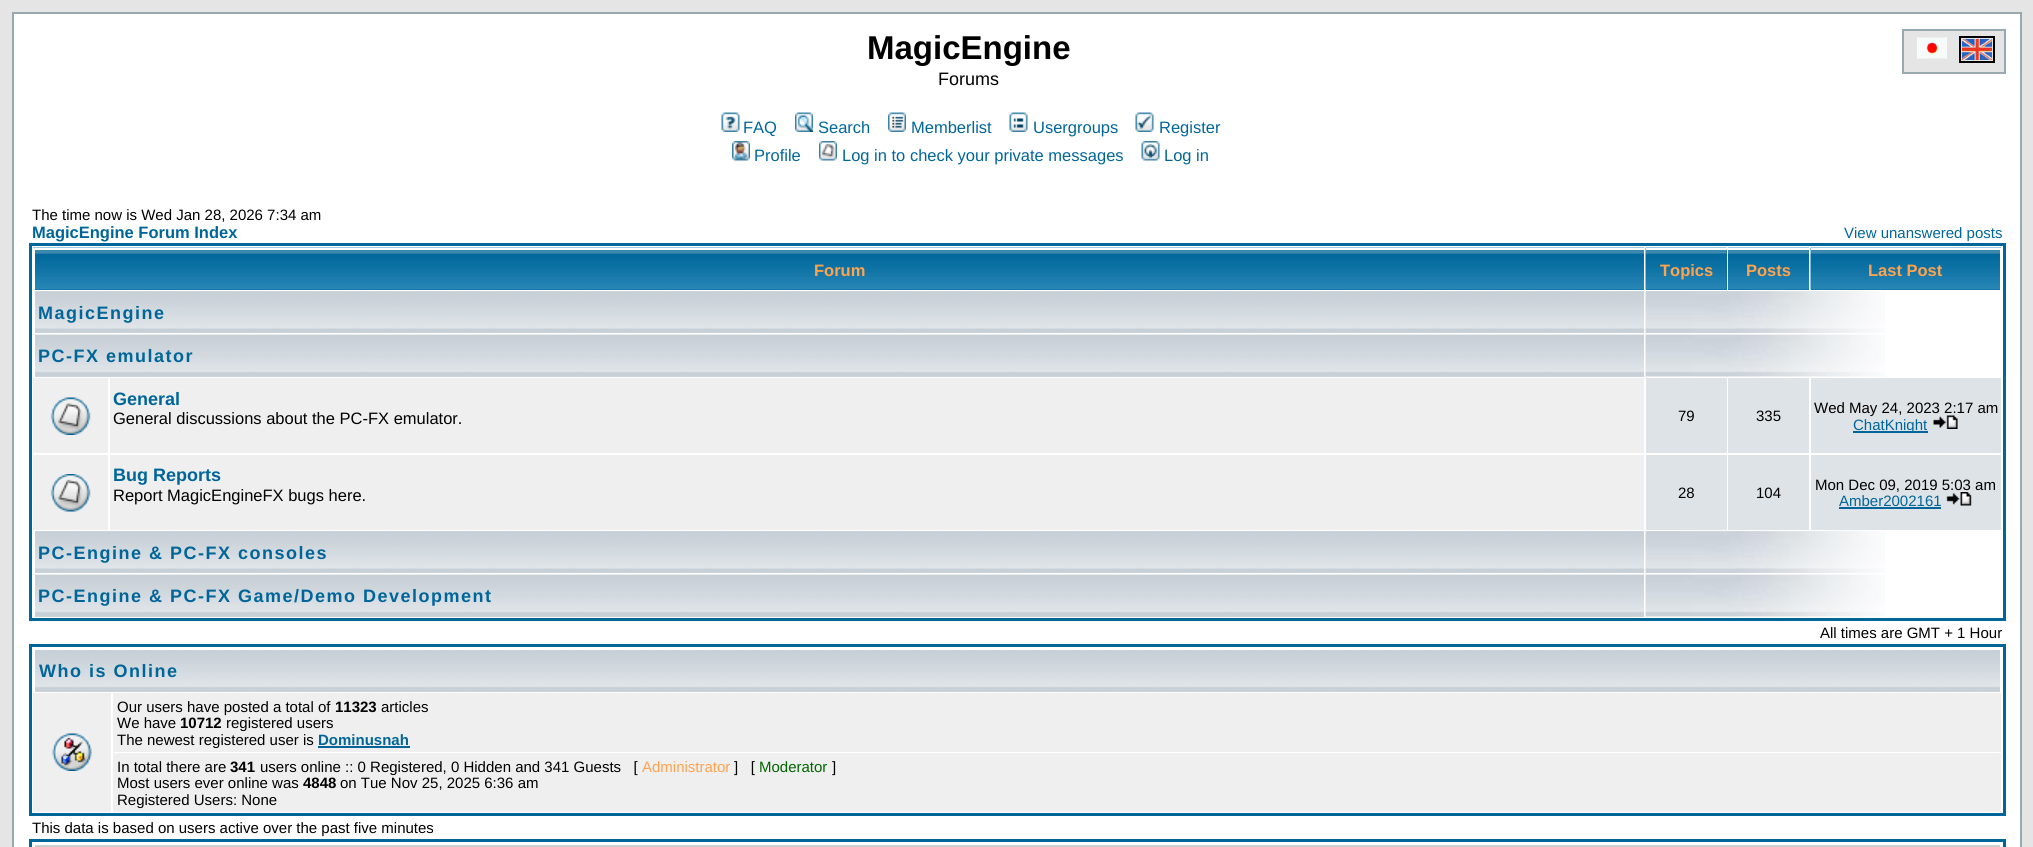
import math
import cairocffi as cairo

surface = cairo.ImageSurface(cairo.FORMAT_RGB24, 2033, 847)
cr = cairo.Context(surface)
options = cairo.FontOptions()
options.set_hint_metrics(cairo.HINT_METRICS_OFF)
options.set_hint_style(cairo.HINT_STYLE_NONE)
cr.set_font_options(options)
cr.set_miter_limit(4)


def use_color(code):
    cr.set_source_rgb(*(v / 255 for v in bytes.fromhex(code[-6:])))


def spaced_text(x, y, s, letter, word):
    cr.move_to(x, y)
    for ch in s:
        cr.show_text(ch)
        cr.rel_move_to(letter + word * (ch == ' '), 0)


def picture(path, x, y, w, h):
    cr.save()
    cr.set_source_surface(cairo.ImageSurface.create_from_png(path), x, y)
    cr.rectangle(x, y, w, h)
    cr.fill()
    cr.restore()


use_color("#e5e5e5")
cr.paint()
use_color("#ffffff")
cr.rectangle(13, 13, 2008, 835)
cr.fill_preserve()
use_color("#98aab1")
cr.stroke()
cr.select_font_face("Liberation Sans", cairo.FONT_SLANT_NORMAL, cairo.FONT_WEIGHT_BOLD)
cr.set_font_size(33)
use_color("#000000")
cr.move_to(867, 59)
cr.show_text("MagicEngine")
cr.select_font_face("Liberation Sans")
cr.set_font_size(18)
cr.move_to(938, 85)
cr.show_text("Forums")
picture("img1.png", 721, 112, 19, 20)
cr.set_font_size(16.5)
use_color("#006699")
cr.move_to(743, 133)
cr.show_text("FAQ")
picture("img2.png", 795, 112, 18, 20)
cr.move_to(818, 133)
cr.show_text("Search")
picture("img3.png", 888, 112, 18, 20)
cr.move_to(911, 133)
cr.show_text("Memberlist")
picture("img4.png", 1009, 112, 19, 20)
cr.move_to(1033, 133)
cr.show_text("Usergroups")
picture("img5.png", 1135, 112, 19, 20)
cr.move_to(1159, 133)
cr.show_text("Register")
picture("img6.png", 732, 141, 18, 20)
cr.move_to(754, 161)
cr.show_text("Profile")
picture("img7.png", 819, 141, 18, 20)
cr.move_to(842, 161)
cr.show_text("Log in to check your private messages")
picture("img8.png", 1141, 141, 19, 20)
cr.move_to(1164, 161)
cr.show_text("Log in")
use_color("#e5e5e5")
cr.rectangle(1903, 30, 102, 43)
cr.fill_preserve()
use_color("#98aab1")
cr.stroke()
picture("img9.png", 1917, 37, 30, 22)
cr.rectangle(1960, 37, 34, 25)
use_color("#000000")
cr.stroke()
picture("img10.png", 1962, 39, 30, 21)
cr.set_font_size(15)
cr.move_to(32, 220)
cr.show_text("The time now is Wed Jan 28, 2026 7:34 am")
cr.select_font_face("Liberation Sans", cairo.FONT_SLANT_NORMAL, cairo.FONT_WEIGHT_BOLD)
cr.set_font_size(16.5)
use_color("#006699")
cr.move_to(32, 238)
cr.show_text("MagicEngine Forum Index")
cr.select_font_face("Liberation Sans")
cr.set_font_size(15)
cr.move_to(1844, 238)
cr.show_text("View unanswered posts")
cr.rectangle(30.5, 244.5, 1974, 375)
cr.set_line_width(3)
cr.stroke()
cr.rectangle(35, 289, 1609, 1)
cr.fill()
picture("img11.png", 33, 247, 1611, 43)
use_color("#ffffff")
cr.rectangle(33, 248, 1611, 2)
cr.fill()
cr.rectangle(33, 248, 2, 42)
cr.fill()
cr.select_font_face("Liberation Sans", cairo.FONT_SLANT_NORMAL, cairo.FONT_WEIGHT_BOLD)
cr.set_font_size(16.5)
use_color("#ffa34f")
cr.move_to(814, 276)
cr.show_text("Forum")
use_color("#006699")
cr.rectangle(1646, 250, 81, 40)
cr.fill()
picture("img12.png", 1645, 247, 82, 43)
use_color("#ffffff")
cr.rectangle(1646, 248, 81, 2)
cr.fill()
use_color("#ffa34f")
cr.move_to(1660, 276)
cr.show_text("Topics")
use_color("#006699")
cr.rectangle(1728, 289, 81, 1)
cr.fill()
picture("img13.png", 1728, 247, 81, 43)
use_color("#ffffff")
cr.rectangle(1728, 248, 81, 2)
cr.fill()
use_color("#ffa34f")
cr.move_to(1746, 276)
cr.show_text("Posts")
use_color("#006699")
cr.rectangle(1811, 289, 189, 1)
cr.fill()
picture("img14.png", 1810, 247, 191, 43)
use_color("#ffffff")
cr.rectangle(1811, 248, 190, 2)
cr.fill()
cr.rectangle(2000, 248, 1, 42)
cr.fill()
use_color("#ffa34f")
cr.move_to(1868, 276)
cr.show_text("Last Post")
picture("img15.png", 35, 291, 1609, 42)
cr.set_font_size(18)
use_color("#006699")
spaced_text(38, 319, "MagicEngine", 1.5, 0)
picture("img16.png", 1645, 291, 240, 42)
use_color("#d1d7dc")
cr.rectangle(35, 376, 1609, 1)
cr.fill()
picture("img17.png", 33, 334, 1611, 43)
use_color("#ffffff")
cr.rectangle(33, 335, 2, 42)
cr.fill()
use_color("#006699")
spaced_text(38, 362, "PC-FX emulator", 1.5, 0)
picture("img18.png", 1645, 334, 240, 43)
use_color("#efefef")
cr.rectangle(33, 378, 75, 75)
cr.fill()
picture("img19.png", 50, 397, 41, 38)
cr.rectangle(110, 378, 1534, 75)
cr.fill()
use_color("#006699")
cr.move_to(113, 405)
cr.show_text("General")
cr.select_font_face("Liberation Sans")
cr.set_font_size(16.5)
use_color("#000000")
cr.move_to(113, 424)
cr.show_text("General discussions about the PC-FX emulator.")
use_color("#dee3e7")
cr.rectangle(1646, 378, 81, 75)
cr.fill()
cr.set_font_size(15)
use_color("#000000")
cr.move_to(1678, 421)
cr.show_text("79")
use_color("#dee3e7")
cr.rectangle(1728, 378, 81, 75)
cr.fill()
use_color("#000000")
cr.move_to(1756, 421)
cr.show_text("335")
use_color("#dee3e7")
cr.rectangle(1811, 378, 190, 75)
cr.fill()
use_color("#000000")
cr.move_to(1814, 413)
cr.show_text("Wed May 24, 2023 2:17 am")
use_color("#006699")
cr.rectangle(1853, 431, 75, 2)
cr.fill()
cr.move_to(1853, 430)
cr.show_text("ChatKnight")
picture("img20.png", 1933, 415, 25, 14)
use_color("#efefef")
cr.rectangle(33, 455, 75, 75)
cr.fill()
picture("img21.png", 50, 474, 41, 38)
cr.rectangle(110, 455, 1534, 75)
cr.fill()
cr.select_font_face("Liberation Sans", cairo.FONT_SLANT_NORMAL, cairo.FONT_WEIGHT_BOLD)
cr.set_font_size(18)
use_color("#006699")
cr.move_to(113, 481)
cr.show_text("Bug Reports")
cr.select_font_face("Liberation Sans")
cr.set_font_size(16.5)
use_color("#000000")
cr.move_to(113, 501)
cr.show_text("Report MagicEngineFX bugs here.")
use_color("#dee3e7")
cr.rectangle(1646, 455, 81, 75)
cr.fill()
cr.set_font_size(15)
use_color("#000000")
cr.move_to(1678, 498)
cr.show_text("28")
use_color("#dee3e7")
cr.rectangle(1728, 455, 81, 75)
cr.fill()
use_color("#000000")
cr.move_to(1756, 498)
cr.show_text("104")
use_color("#dee3e7")
cr.rectangle(1811, 455, 190, 75)
cr.fill()
use_color("#000000")
cr.move_to(1815, 490)
cr.show_text("Mon Dec 09, 2019 5:03 am")
use_color("#006699")
cr.move_to(1839, 506)
cr.show_text("Amber2002161")
cr.rectangle(1839, 507, 102, 2)
cr.fill()
picture("img22.png", 1946, 492, 26, 14)
picture("img15.png", 35, 531, 1609, 42)
cr.select_font_face("Liberation Sans", cairo.FONT_SLANT_NORMAL, cairo.FONT_WEIGHT_BOLD)
cr.set_font_size(18)
spaced_text(38, 559, "PC-Engine & PC-FX consoles", 1.5, 0)
picture("img23.png", 1645, 531, 240, 42)
use_color("#d1d7dc")
cr.rectangle(35, 616, 1609, 1)
cr.fill()
picture("img17.png", 33, 574, 1611, 43)
use_color("#ffffff")
cr.rectangle(33, 575, 2, 42)
cr.fill()
use_color("#006699")
spaced_text(38, 602, "PC-Engine & PC-FX Game/Demo Development", 1.5, 0)
picture("img24.png", 1645, 574, 240, 43)
cr.select_font_face("Liberation Sans")
cr.set_font_size(15)
use_color("#000000")
cr.move_to(1820, 638)
cr.show_text("All times are GMT + 1 Hour")
cr.rectangle(30.5, 645.5, 1974, 169)
use_color("#006699")
cr.stroke()
use_color("#d1d7dc")
cr.rectangle(35, 691, 1965, 1)
cr.fill()
picture("img25.png", 35, 650, 1965, 42)
cr.select_font_face("Liberation Sans", cairo.FONT_SLANT_NORMAL, cairo.FONT_WEIGHT_BOLD)
cr.set_font_size(18)
use_color("#006699")
spaced_text(39, 677, "Who is Online", 1.5, 0)
use_color("#efefef")
cr.rectangle(33, 693, 78, 119)
cr.fill()
picture("img26.png", 52, 733, 40, 38)
cr.rectangle(113, 693, 1888, 59)
cr.fill()
cr.select_font_face("Liberation Sans")
cr.set_font_size(15)
use_color("#000000")
cr.move_to(117, 712)
cr.show_text("Our users have posted a total of")
cr.select_font_face("Liberation Sans", cairo.FONT_SLANT_NORMAL, cairo.FONT_WEIGHT_BOLD)
cr.move_to(335, 712)
cr.show_text("11323")
cr.select_font_face("Liberation Sans")
cr.move_to(381, 712)
cr.show_text("articles")
cr.move_to(117, 728)
cr.show_text("We have")
cr.select_font_face("Liberation Sans", cairo.FONT_SLANT_NORMAL, cairo.FONT_WEIGHT_BOLD)
cr.move_to(180, 728)
cr.show_text("10712")
cr.select_font_face("Liberation Sans")
cr.move_to(226, 728)
cr.show_text("registered users")
cr.move_to(117, 745)
cr.show_text("The newest registered user is")
cr.select_font_face("Liberation Sans", cairo.FONT_SLANT_NORMAL, cairo.FONT_WEIGHT_BOLD)
use_color("#006699")
cr.move_to(318, 745)
cr.show_text("Dominusnah")
cr.rectangle(318, 746, 92, 2)
cr.fill()
use_color("#efefef")
cr.rectangle(113, 753, 1888, 59)
cr.fill()
cr.select_font_face("Liberation Sans")
use_color("#000000")
cr.move_to(117, 772)
cr.show_text("In total there are")
cr.select_font_face("Liberation Sans", cairo.FONT_SLANT_NORMAL, cairo.FONT_WEIGHT_BOLD)
cr.move_to(230, 772)
cr.show_text("341")
cr.select_font_face("Liberation Sans")
cr.move_to(260, 772)
cr.show_text("users online :: 0 Registered, 0 Hidden and 341 Guests   [")
use_color("#ffa34f")
cr.move_to(642, 772)
cr.show_text("Administrator")
use_color("#000000")
cr.move_to(734, 772)
cr.show_text("]   [")
use_color("#006600")
cr.move_to(759, 772)
cr.show_text("Moderator")
use_color("#000000")
cr.move_to(832, 772)
cr.show_text("]")
cr.move_to(117, 788)
cr.show_text("Most users ever online was")
cr.select_font_face("Liberation Sans", cairo.FONT_SLANT_NORMAL, cairo.FONT_WEIGHT_BOLD)
cr.move_to(303, 788)
cr.show_text("4848")
cr.select_font_face("Liberation Sans")
cr.move_to(340, 788)
cr.show_text("on Tue Nov 25, 2025 6:36 am")
cr.move_to(117, 805)
cr.show_text("Registered Users: None")
cr.move_to(32, 833)
cr.show_text("This data is based on users active over the past five minutes")
cr.rectangle(30.5, 840.5, 1974, 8)
use_color("#006699")
cr.stroke()
picture("img27.png", 35, 845, 1965, 2)
surface.write_to_png("result.png")
